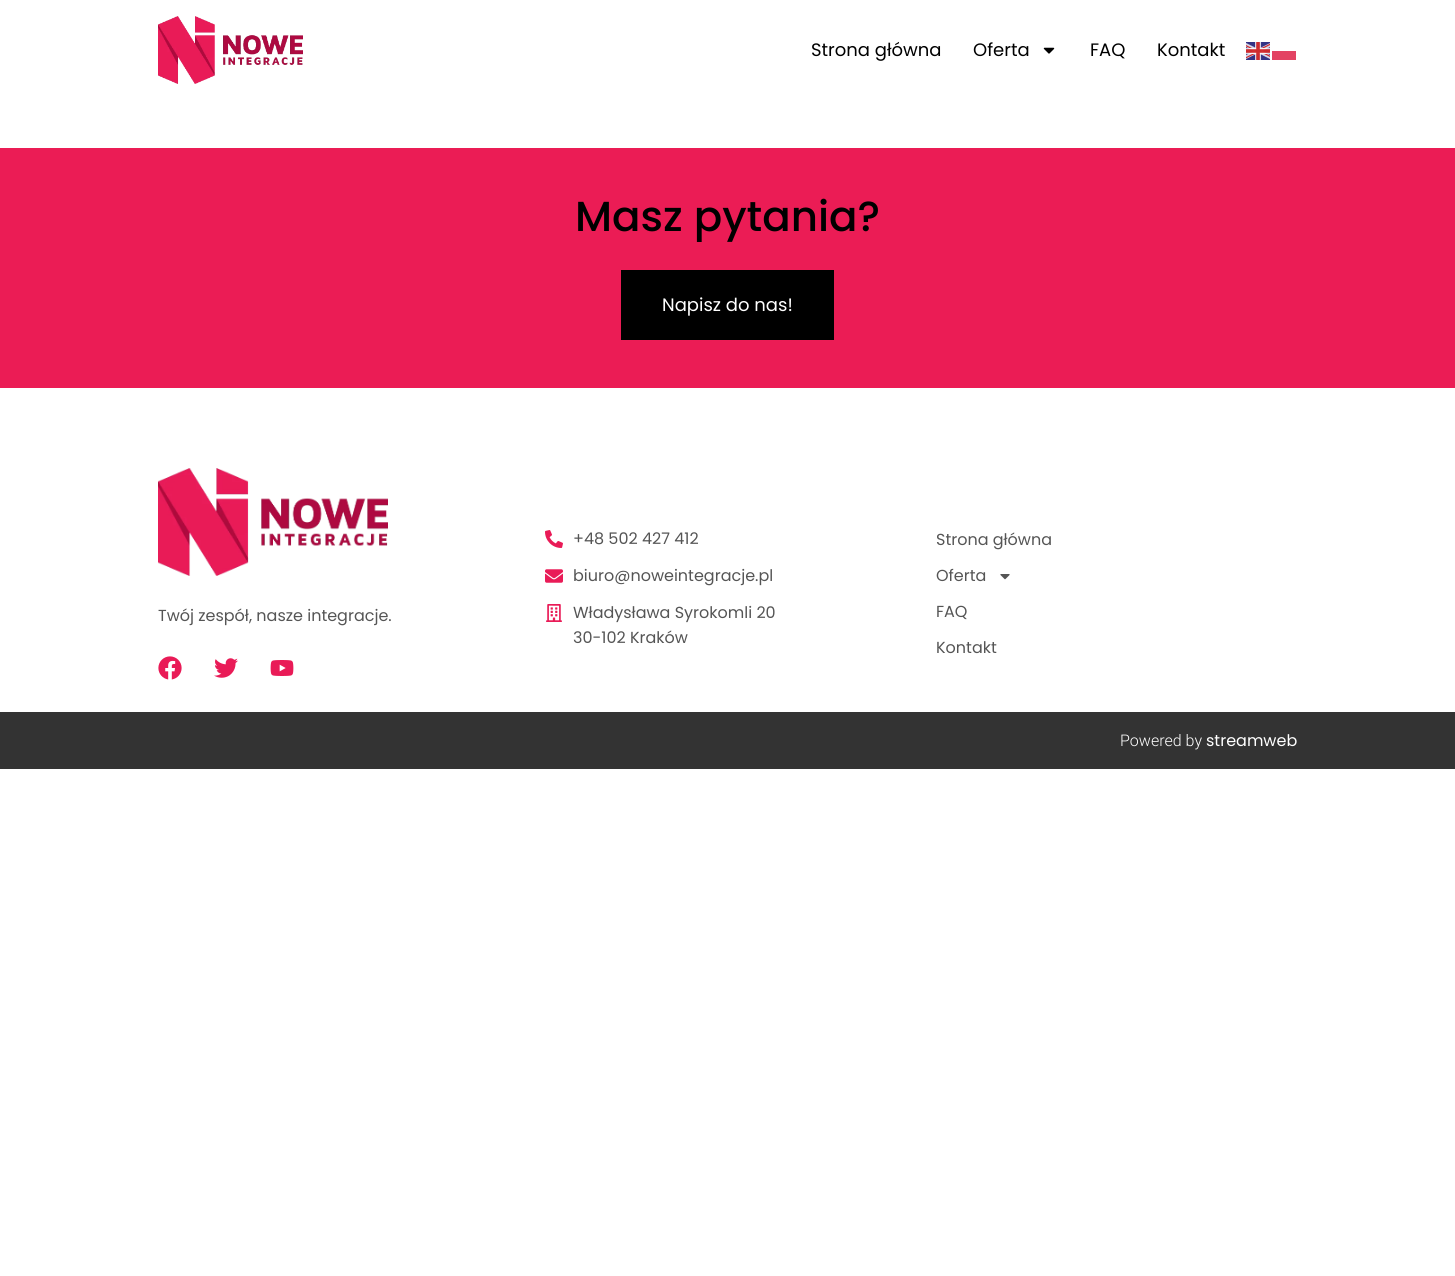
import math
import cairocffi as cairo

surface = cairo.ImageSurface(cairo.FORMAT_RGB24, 1455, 1276)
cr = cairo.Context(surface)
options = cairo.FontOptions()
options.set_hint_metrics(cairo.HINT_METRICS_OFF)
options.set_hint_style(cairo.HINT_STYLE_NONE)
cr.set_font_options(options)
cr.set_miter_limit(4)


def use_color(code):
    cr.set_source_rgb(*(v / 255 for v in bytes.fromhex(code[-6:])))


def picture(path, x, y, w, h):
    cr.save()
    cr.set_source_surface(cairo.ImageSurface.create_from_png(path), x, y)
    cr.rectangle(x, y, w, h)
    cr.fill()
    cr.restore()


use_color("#ffffff")
cr.paint()
picture("img1.png", 158, 16, 145, 68)
cr.select_font_face("Poppins")
cr.set_font_size(18)
use_color("#000000")
cr.move_to(811, 56)
cr.show_text("Strona główna")
cr.move_to(973, 56)
cr.show_text("Oferta")
picture("img2.png", 1043, 47, 12, 7)
cr.move_to(1090, 56)
cr.show_text("FAQ")
cr.move_to(1157, 56)
cr.show_text("Kontakt")
picture("img3.png", 1246, 42, 24, 18)
use_color("#e34363")
cr.rectangle(1272, 51, 24, 9)
cr.fill()
use_color("#eb1c55")
cr.rectangle(0, 148, 1455, 240)
cr.fill()
cr.select_font_face("Poppins Medium")
cr.set_font_size(42)
use_color("#000000")
cr.move_to(575, 231)
cr.show_text("Masz pytania?")
cr.rectangle(621, 270, 213, 70)
cr.fill()
cr.select_font_face("Poppins")
cr.set_font_size(18)
use_color("#ffffff")
cr.move_to(662, 311)
cr.show_text("Napisz do nas!")
picture("img4.png", 158, 468, 230, 108)
cr.set_font_size(16)
use_color("#555555")
cr.move_to(158, 621)
cr.show_text("Twój zespół, nasze integracje.")
picture("img5.png", 158, 656, 24, 24)
picture("img6.png", 214, 658, 24, 20)
picture("img7.png", 270, 660, 24, 16)
picture("img8.png", 545, 530, 18, 18)
cr.move_to(573, 544)
cr.show_text("+48 502 427 412")
picture("img9.png", 545, 569, 18, 14)
cr.move_to(573, 581)
cr.show_text("biuro@noweintegracje.pl")
picture("img10.png", 546, 604, 16, 18)
cr.move_to(573, 618)
cr.show_text("Władysława Syrokomli 20")
cr.move_to(573, 643)
cr.show_text("30-102 Kraków")
cr.move_to(936, 545)
cr.show_text("Strona główna")
cr.move_to(936, 581)
cr.show_text("Oferta")
picture("img11.png", 1000, 574, 10, 6)
cr.move_to(936, 617)
cr.show_text("FAQ")
cr.move_to(936, 653)
cr.show_text("Kontakt")
use_color("#333333")
cr.rectangle(0, 712, 1455, 57)
cr.fill()
cr.select_font_face("Roboto Light")
use_color("#ffffff")
cr.move_to(1120, 746)
cr.show_text("Powered by")
cr.select_font_face("Poppins")
cr.move_to(1206, 746)
cr.show_text("streamweb")
surface.write_to_png("result.png")
